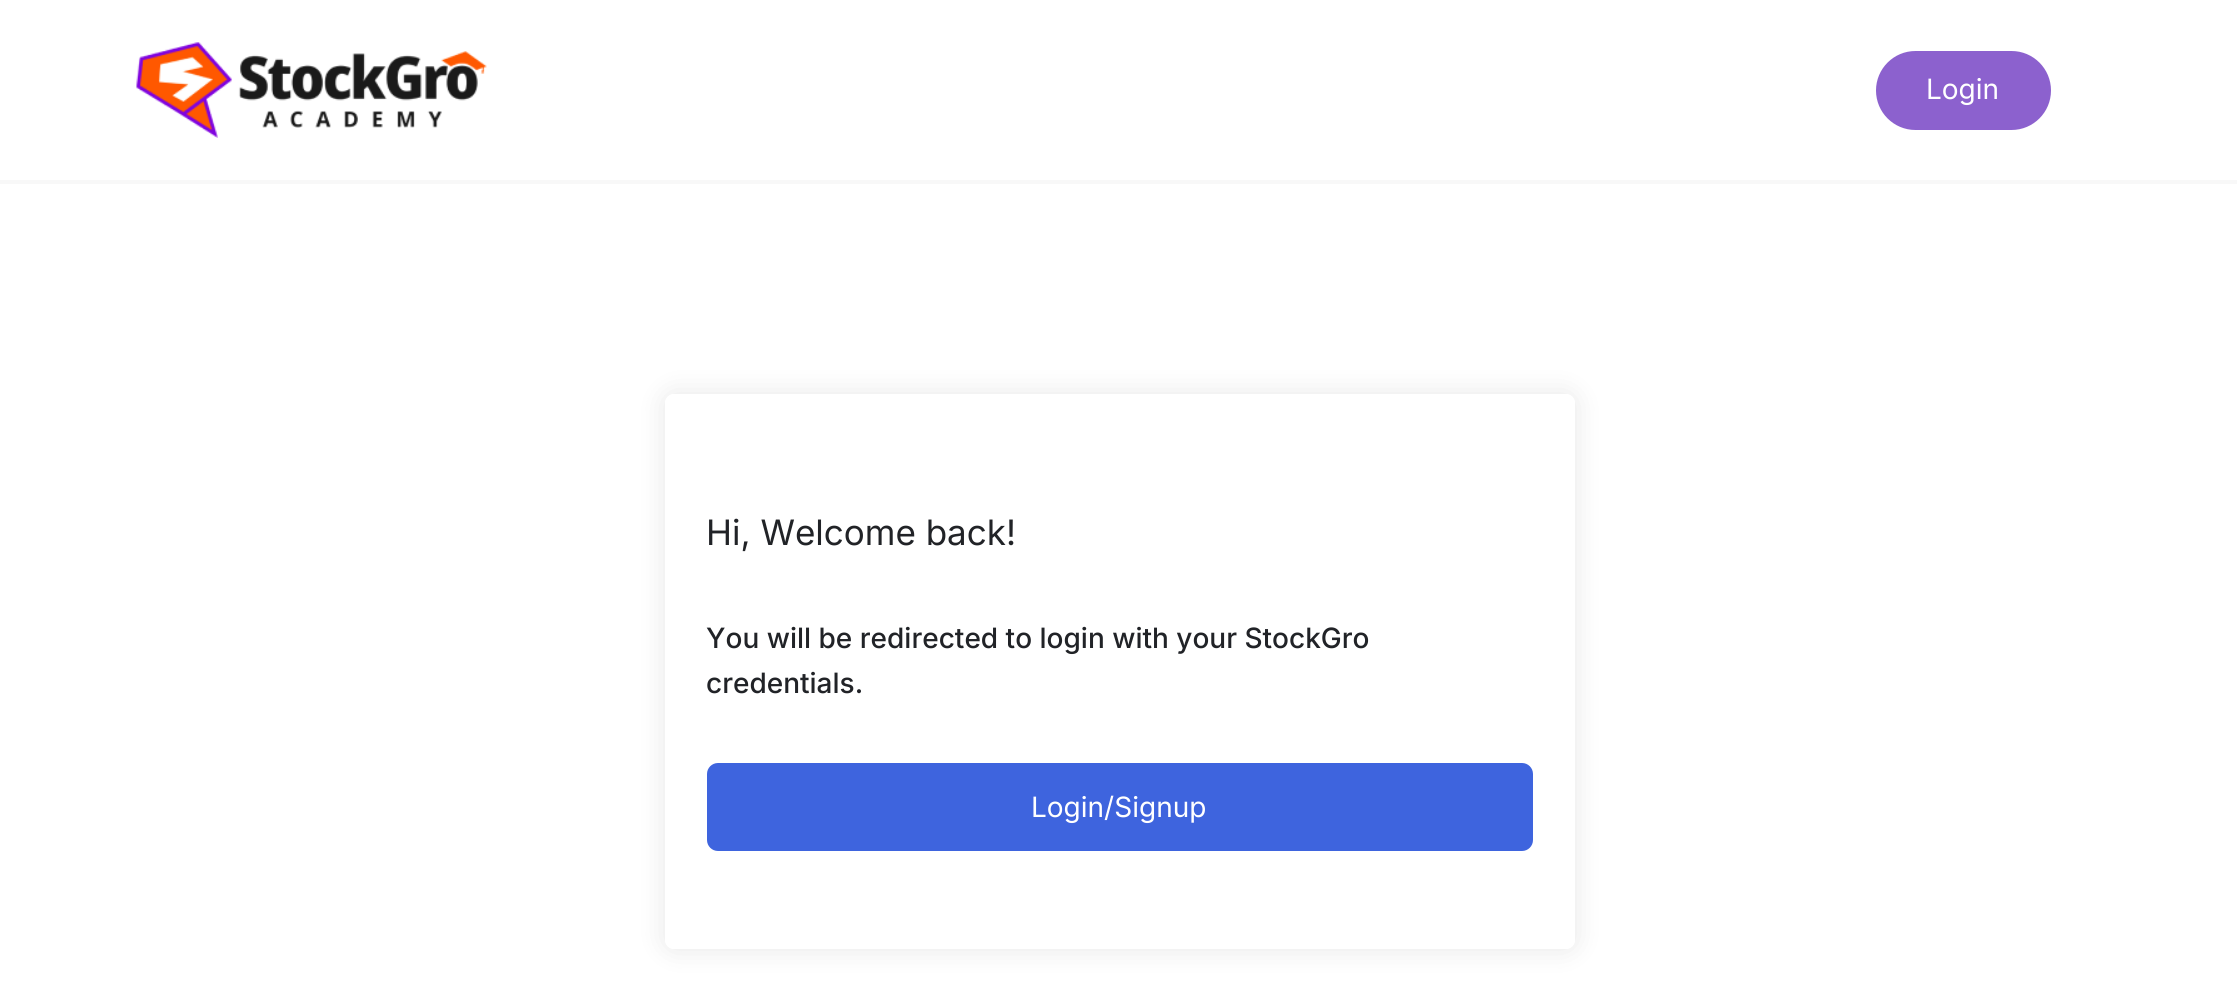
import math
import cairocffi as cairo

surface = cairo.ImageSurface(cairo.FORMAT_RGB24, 2237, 982)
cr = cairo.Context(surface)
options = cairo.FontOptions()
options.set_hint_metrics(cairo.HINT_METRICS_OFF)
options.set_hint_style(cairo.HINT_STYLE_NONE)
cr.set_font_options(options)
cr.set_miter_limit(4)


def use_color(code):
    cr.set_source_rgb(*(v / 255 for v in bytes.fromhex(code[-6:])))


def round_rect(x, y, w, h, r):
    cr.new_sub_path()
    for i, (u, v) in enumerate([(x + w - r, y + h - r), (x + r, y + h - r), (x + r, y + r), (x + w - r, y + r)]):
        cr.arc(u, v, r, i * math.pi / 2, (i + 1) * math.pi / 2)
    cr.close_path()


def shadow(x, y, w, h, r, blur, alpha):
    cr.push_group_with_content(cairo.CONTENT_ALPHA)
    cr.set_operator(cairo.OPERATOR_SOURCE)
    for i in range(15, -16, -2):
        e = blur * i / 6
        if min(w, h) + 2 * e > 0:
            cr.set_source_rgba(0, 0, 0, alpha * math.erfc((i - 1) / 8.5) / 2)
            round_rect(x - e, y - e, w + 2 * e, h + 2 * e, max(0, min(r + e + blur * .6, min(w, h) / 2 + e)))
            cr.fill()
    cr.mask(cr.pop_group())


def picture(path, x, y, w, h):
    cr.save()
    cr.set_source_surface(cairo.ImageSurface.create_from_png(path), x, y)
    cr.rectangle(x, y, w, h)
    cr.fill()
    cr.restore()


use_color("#ffffff")
cr.paint()
use_color("#f8f8f8")
cr.rectangle(0, 180, 2237, 4)
cr.fill()
picture("img1.png", 136, 42, 351, 96)
use_color("#8c61ce")
round_rect(1877, 52, 173, 77, 38.5)
cr.fill_preserve()
cr.stroke()
cr.select_font_face("Inter")
cr.set_font_size(28)
use_color("#ffffff")
cr.move_to(1926, 99)
cr.show_text("Login")
cr.save()
cr.set_fill_rule(cairo.FILL_RULE_EVEN_ODD)
cr.new_path()
cr.move_to(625, 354)
cr.line_to(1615, 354)
cr.line_to(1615, 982)
cr.line_to(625, 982)
cr.close_path()
cr.move_to(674, 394)
cr.line_to(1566, 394)
cr.curve_to(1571, 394, 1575, 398, 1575, 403)
cr.line_to(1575, 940)
cr.curve_to(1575, 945, 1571, 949, 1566, 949)
cr.line_to(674, 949)
cr.curve_to(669, 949, 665, 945, 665, 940)
cr.line_to(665, 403)
cr.curve_to(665, 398, 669, 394, 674, 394)
cr.close_path()
cr.clip()
use_color("#000000")
shadow(665, 394, 910, 555, 9, 13, 0.1)
cr.restore()
cr.set_font_size(35)
use_color("#212327")
cr.move_to(706, 545)
cr.show_text("Hi, Welcome back!")
cr.select_font_face("Inter Medium")
cr.set_font_size(28)
cr.move_to(706, 648)
cr.show_text("You will be redirected to login with your StockGro")
cr.move_to(706, 693)
cr.show_text("credentials.")
use_color("#3e64de")
round_rect(708, 764, 824, 86, 10)
cr.fill_preserve()
cr.stroke()
cr.select_font_face("Inter")
use_color("#ffffff")
cr.move_to(1031, 817)
cr.show_text("Login/Signup")
surface.write_to_png("result.png")
